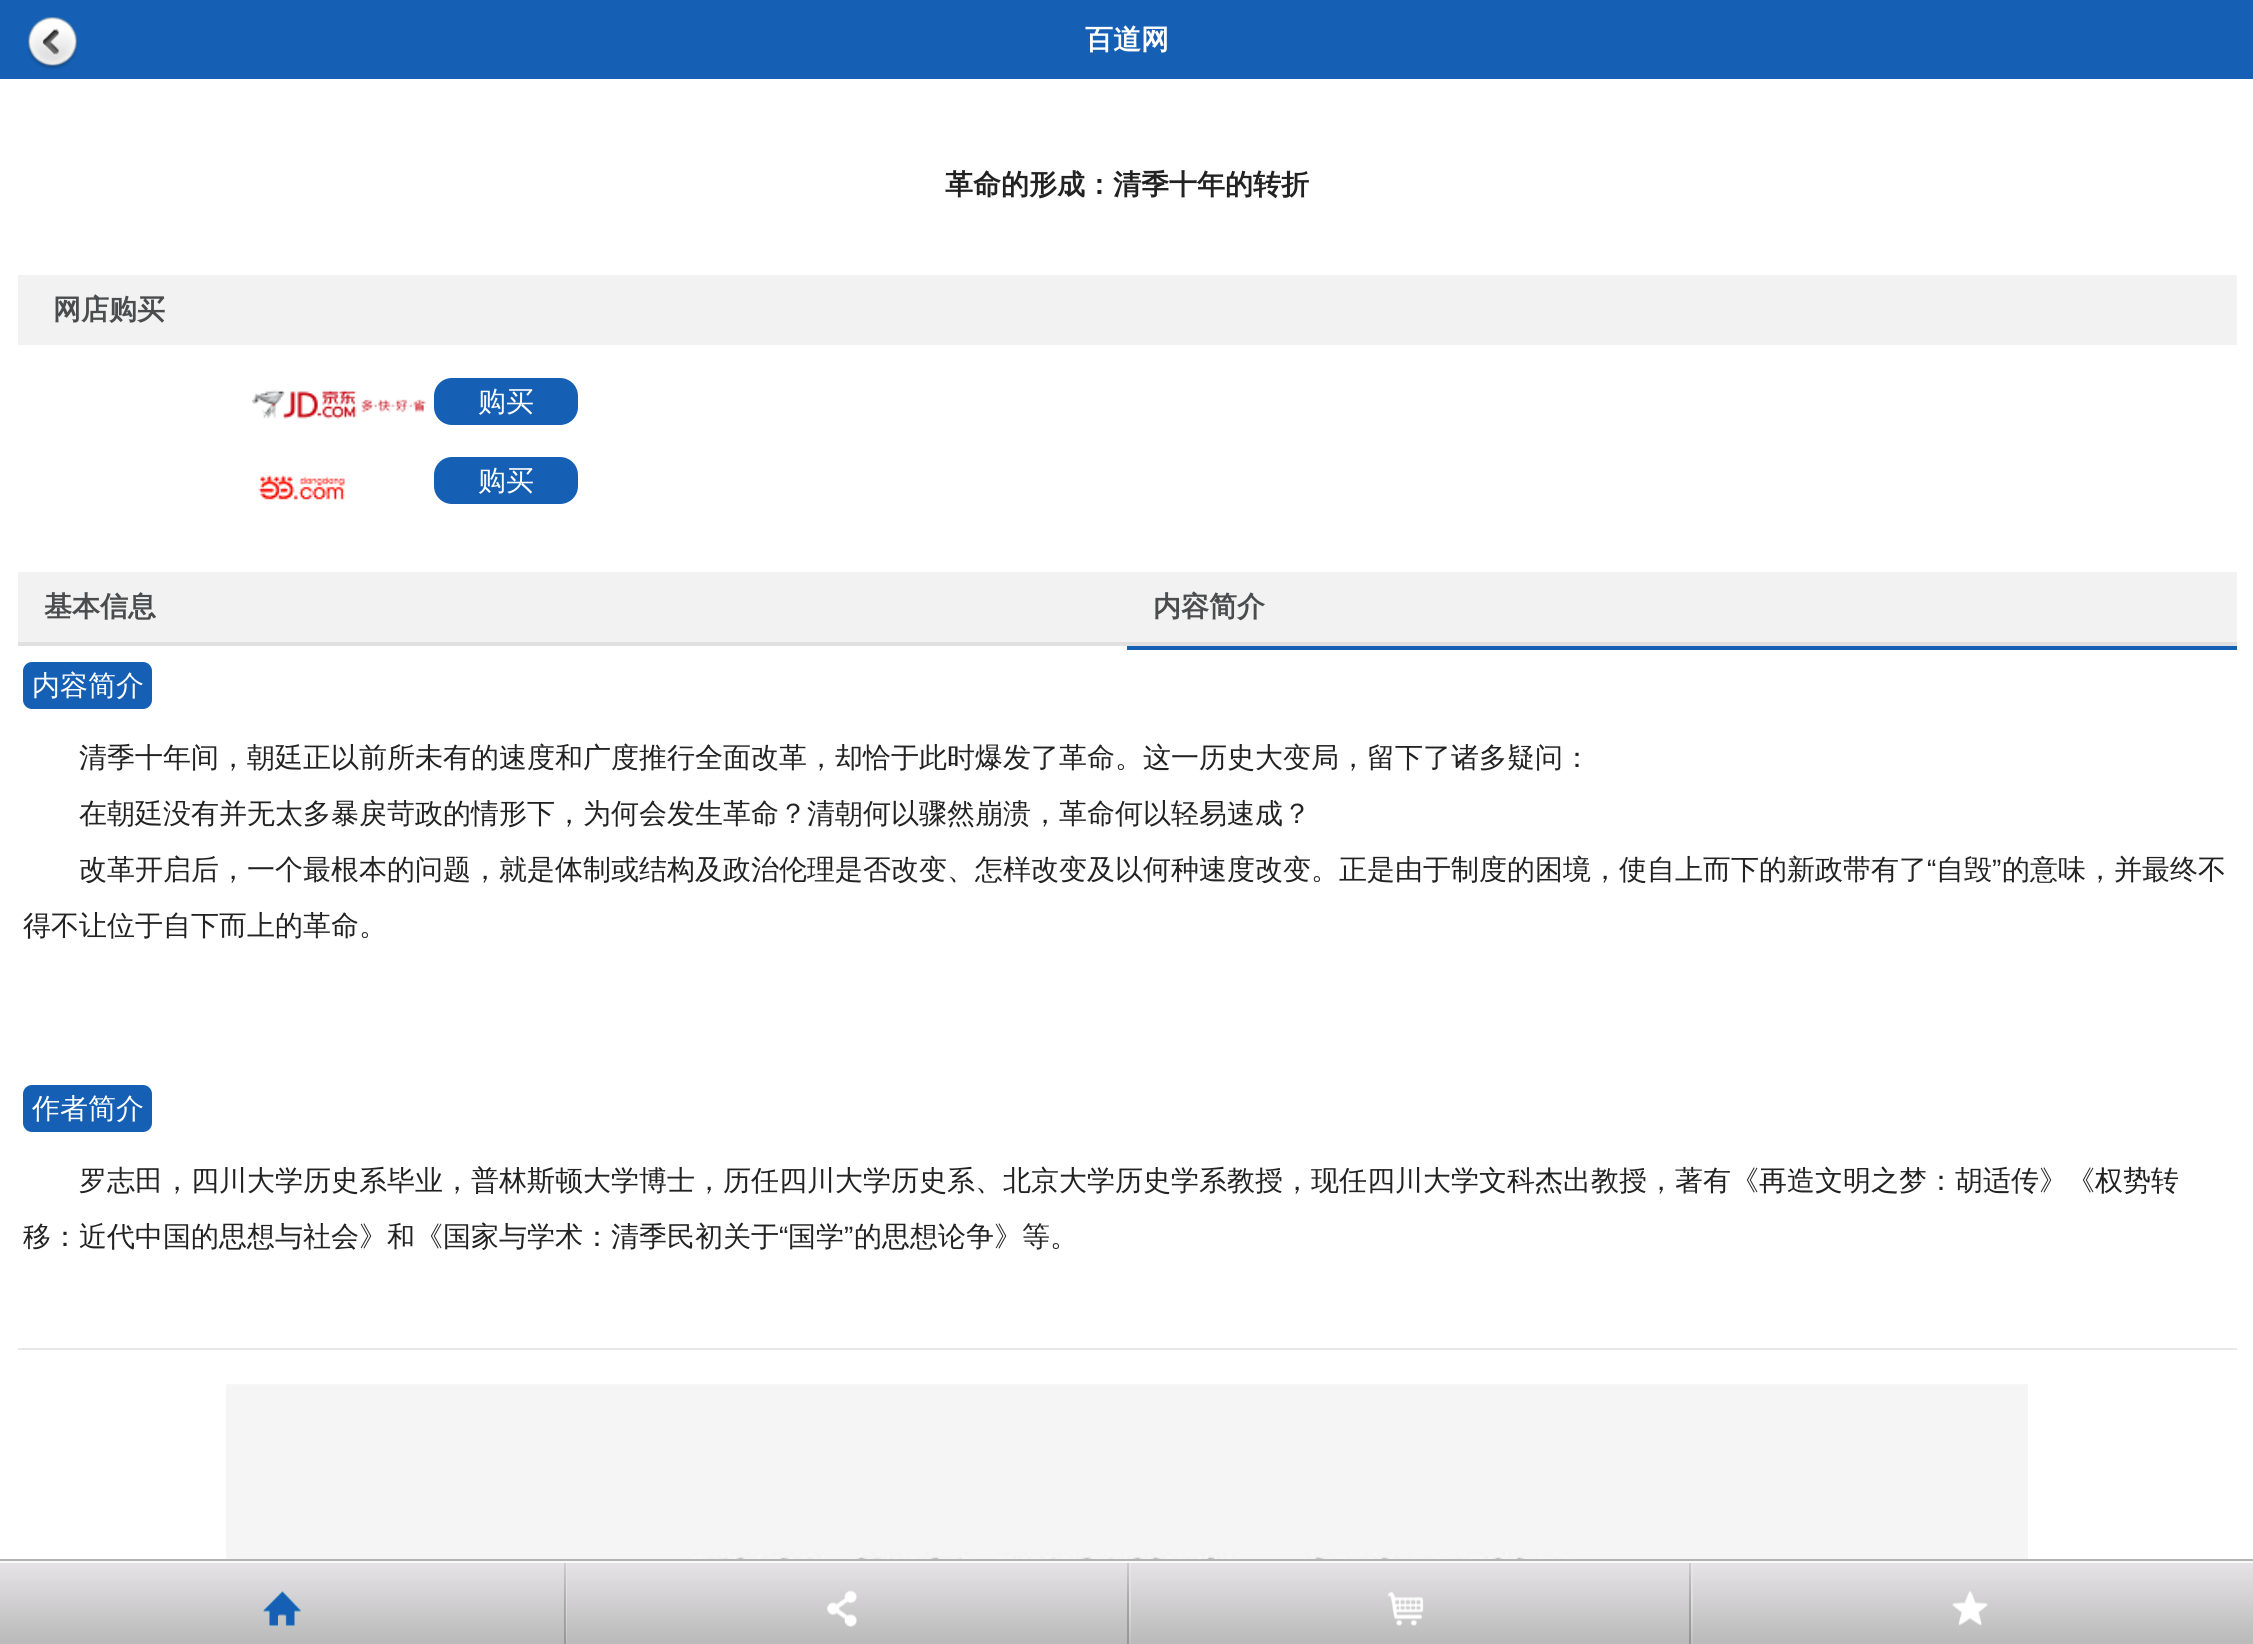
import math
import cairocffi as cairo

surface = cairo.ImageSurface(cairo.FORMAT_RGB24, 2253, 1644)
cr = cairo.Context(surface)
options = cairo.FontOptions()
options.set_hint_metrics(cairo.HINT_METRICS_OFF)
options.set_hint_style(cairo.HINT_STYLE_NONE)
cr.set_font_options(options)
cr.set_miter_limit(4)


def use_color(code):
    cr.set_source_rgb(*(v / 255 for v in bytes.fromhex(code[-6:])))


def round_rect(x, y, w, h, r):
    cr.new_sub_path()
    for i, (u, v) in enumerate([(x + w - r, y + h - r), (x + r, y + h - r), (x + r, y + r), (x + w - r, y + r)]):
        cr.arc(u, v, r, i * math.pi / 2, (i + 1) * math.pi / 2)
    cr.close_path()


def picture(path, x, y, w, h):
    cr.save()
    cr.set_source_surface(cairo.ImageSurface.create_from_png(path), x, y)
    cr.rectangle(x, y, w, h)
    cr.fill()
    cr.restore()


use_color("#1560b4")
cr.paint()
picture("img1.png", 27, 17, 51, 53)
cr.select_font_face("WenQuanYi Zen Hei", cairo.FONT_SLANT_NORMAL, cairo.FONT_WEIGHT_BOLD)
cr.set_font_size(28)
use_color("#ffffff")
cr.move_to(1085, 49)
cr.show_text("百道网")
cr.rectangle(0, 79, 2253, 1480)
cr.fill()
use_color("#222222")
cr.move_to(945, 194)
cr.show_text("革命的形成：清季十年的转折")
use_color("#f2f2f2")
cr.rectangle(18, 275, 2219, 70)
cr.fill()
use_color("#4b4c4d")
cr.move_to(53, 319)
cr.show_text("网店购买")
picture("img2.png", 252, 389, 174, 30)
use_color("#1560b4")
round_rect(434, 378, 144, 47, 18)
cr.fill()
cr.select_font_face("WenQuanYi Zen Hei Medium")
use_color("#ffffff")
cr.move_to(478, 411)
cr.show_text("购买")
picture("img3.png", 258, 475, 87, 26)
use_color("#1560b4")
round_rect(434, 457, 144, 47, 18)
cr.fill()
use_color("#ffffff")
cr.move_to(478, 490)
cr.show_text("购买")
use_color("#f2f2f2")
cr.rectangle(18, 572, 2219, 70)
cr.fill()
use_color("#e0e0e0")
cr.rectangle(18, 642, 2219, 4)
cr.fill()
cr.select_font_face("WenQuanYi Zen Hei", cairo.FONT_SLANT_NORMAL, cairo.FONT_WEIGHT_BOLD)
use_color("#4b4c4d")
cr.move_to(44, 616)
cr.show_text("基本信息")
use_color("#1560b4")
cr.rectangle(1127, 646, 1110, 4)
cr.fill()
use_color("#4b4c4d")
cr.move_to(1153, 616)
cr.show_text("内容简介")
use_color("#e8e8e8")
cr.rectangle(18, 1348, 2219, 2)
cr.fill()
use_color("#1560b4")
round_rect(23, 662, 129, 47, 9)
cr.fill()
cr.select_font_face("WenQuanYi Zen Hei Medium")
use_color("#ffffff")
cr.move_to(32, 695)
cr.show_text("内容简介")
use_color("#222222")
cr.move_to(79, 767)
cr.show_text("清季十年间，朝廷正以前所未有的速度和广度推行全面改革，却恰于此时爆发了革命。这一历史大变局，留下了诸多疑问：")
cr.move_to(79, 823)
cr.show_text("在朝廷没有并无太多暴戾苛政的情形下，为何会发生革命？清朝何以骤然崩溃，革命何以轻易速成？")
cr.move_to(79, 879)
cr.show_text("改革开启后，一个最根本的问题，就是体制或结构及政治伦理是否改变、怎样改变及以何种速度改变。正是由于制度的困境，使自上而下的新政带有了")
cr.select_font_face("Liberation Sans")
cr.move_to(1927, 879)
cr.show_text("“")
cr.select_font_face("WenQuanYi Zen Hei Medium")
cr.move_to(1936, 879)
cr.show_text("自毁")
cr.select_font_face("Liberation Sans")
cr.move_to(1992, 879)
cr.show_text("”")
cr.select_font_face("WenQuanYi Zen Hei Medium")
cr.move_to(2002, 879)
cr.show_text("的意味，并最终不")
cr.move_to(23, 935)
cr.show_text("得不让位于自下而上的革命。")
use_color("#1560b4")
round_rect(23, 1085, 129, 47, 9)
cr.fill()
use_color("#ffffff")
cr.move_to(32, 1118)
cr.show_text("作者简介")
use_color("#222222")
cr.move_to(79, 1190)
cr.show_text("罗志田，四川大学历史系毕业，普林斯顿大学博士，历任四川大学历史系、北京大学历史学系教授，现任四川大学文科杰出教授，著有《再造文明之梦：胡适传》《权势转")
cr.move_to(23, 1246)
cr.show_text("移：近代中国的思想与社会》和《国家与学术：清季民初关于")
cr.select_font_face("Liberation Sans")
cr.move_to(779, 1246)
cr.show_text("“")
cr.select_font_face("WenQuanYi Zen Hei Medium")
cr.move_to(788, 1246)
cr.show_text("国学")
cr.select_font_face("Liberation Sans")
cr.move_to(844, 1246)
cr.show_text("”")
cr.select_font_face("WenQuanYi Zen Hei Medium")
cr.move_to(854, 1246)
cr.show_text("的思想论争》等。")
picture("img4.png", 226, 1384, 1802, 175)
gradient = cairo.LinearGradient(0, 1561, 0, 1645)
gradient.add_color_stop_rgba(0, 0.906, 0.894, 0.906, 1)
gradient.add_color_stop_rgba(1, 0.725, 0.725, 0.725, 1)
cr.set_source(gradient)
cr.rectangle(0, 1563, 2253, 81)
cr.fill()
use_color("#b3b3b3")
cr.rectangle(0, 1559, 2253, 2)
cr.fill()
use_color("#f9f9f9")
cr.rectangle(0, 1561, 562, 2)
cr.fill()
picture("img5.png", 263, 1591, 38, 35)
gradient = cairo.LinearGradient(565, 1561, 565, 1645)
gradient.add_color_stop_rgba(0, 1, 1, 1, 0.1)
gradient.add_color_stop_rgba(0.5, 1, 1, 1, 0.3)
gradient.add_color_stop_rgba(1, 1, 1, 1, 0.1)
cr.set_source(gradient)
cr.rectangle(565, 1561, 2, 83)
cr.fill()
gradient = cairo.LinearGradient(564, 1561, 564, 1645)
gradient.add_color_stop_rgba(0, 0, 0, 0, 0.1)
gradient.add_color_stop_rgba(0.5, 0, 0, 0, 0.2)
gradient.add_color_stop_rgba(1, 0, 0, 0, 0.2)
cr.set_source(gradient)
cr.rectangle(564, 1561, 2, 83)
cr.fill()
use_color("#f9f9f9")
cr.rectangle(562, 1561, 563, 2)
cr.fill()
picture("img6.png", 827, 1590, 30, 37)
gradient = cairo.LinearGradient(1129, 1561, 1129, 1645)
gradient.add_color_stop_rgba(0, 1, 1, 1, 0.1)
gradient.add_color_stop_rgba(0.5, 1, 1, 1, 0.3)
gradient.add_color_stop_rgba(1, 1, 1, 1, 0.1)
cr.set_source(gradient)
cr.rectangle(1129, 1561, 2, 83)
cr.fill()
gradient = cairo.LinearGradient(1127, 1561, 1127, 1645)
gradient.add_color_stop_rgba(0, 0, 0, 0, 0.1)
gradient.add_color_stop_rgba(0.5, 0, 0, 0, 0.2)
gradient.add_color_stop_rgba(1, 0, 0, 0, 0.2)
cr.set_source(gradient)
cr.rectangle(1127, 1561, 2, 83)
cr.fill()
use_color("#f9f9f9")
cr.rectangle(1125, 1561, 562, 2)
cr.fill()
picture("img7.png", 1388, 1591, 36, 35)
gradient = cairo.LinearGradient(1691, 1561, 1691, 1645)
gradient.add_color_stop_rgba(0, 1, 1, 1, 0.1)
gradient.add_color_stop_rgba(0.5, 1, 1, 1, 0.3)
gradient.add_color_stop_rgba(1, 1, 1, 1, 0.1)
cr.set_source(gradient)
cr.rectangle(1691, 1561, 2, 83)
cr.fill()
gradient = cairo.LinearGradient(1689, 1561, 1689, 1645)
gradient.add_color_stop_rgba(0, 0, 0, 0, 0.1)
gradient.add_color_stop_rgba(0.5, 0, 0, 0, 0.2)
gradient.add_color_stop_rgba(1, 0, 0, 0, 0.2)
cr.set_source(gradient)
cr.rectangle(1689, 1561, 2, 83)
cr.fill()
use_color("#f9f9f9")
cr.rectangle(1687, 1561, 566, 2)
cr.fill()
picture("img8.png", 1952, 1590, 36, 36)
surface.write_to_png("result.png")
